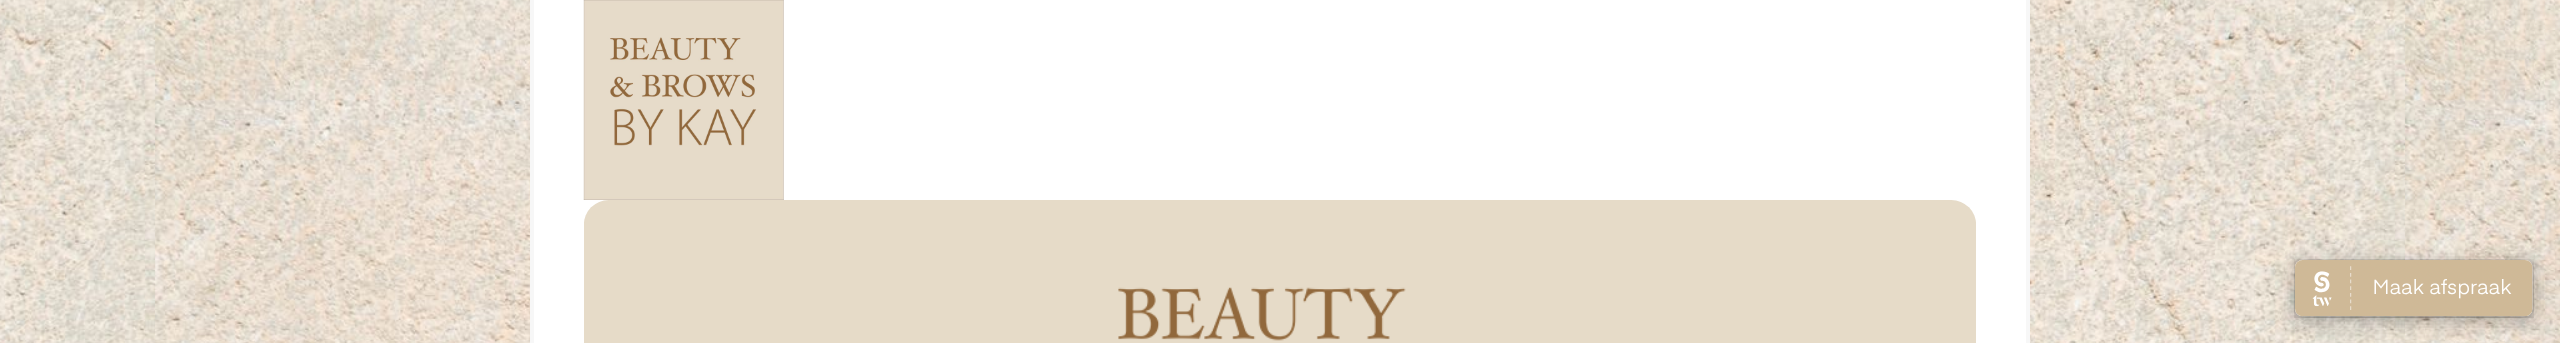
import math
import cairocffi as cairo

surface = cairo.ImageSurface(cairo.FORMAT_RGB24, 2560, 343)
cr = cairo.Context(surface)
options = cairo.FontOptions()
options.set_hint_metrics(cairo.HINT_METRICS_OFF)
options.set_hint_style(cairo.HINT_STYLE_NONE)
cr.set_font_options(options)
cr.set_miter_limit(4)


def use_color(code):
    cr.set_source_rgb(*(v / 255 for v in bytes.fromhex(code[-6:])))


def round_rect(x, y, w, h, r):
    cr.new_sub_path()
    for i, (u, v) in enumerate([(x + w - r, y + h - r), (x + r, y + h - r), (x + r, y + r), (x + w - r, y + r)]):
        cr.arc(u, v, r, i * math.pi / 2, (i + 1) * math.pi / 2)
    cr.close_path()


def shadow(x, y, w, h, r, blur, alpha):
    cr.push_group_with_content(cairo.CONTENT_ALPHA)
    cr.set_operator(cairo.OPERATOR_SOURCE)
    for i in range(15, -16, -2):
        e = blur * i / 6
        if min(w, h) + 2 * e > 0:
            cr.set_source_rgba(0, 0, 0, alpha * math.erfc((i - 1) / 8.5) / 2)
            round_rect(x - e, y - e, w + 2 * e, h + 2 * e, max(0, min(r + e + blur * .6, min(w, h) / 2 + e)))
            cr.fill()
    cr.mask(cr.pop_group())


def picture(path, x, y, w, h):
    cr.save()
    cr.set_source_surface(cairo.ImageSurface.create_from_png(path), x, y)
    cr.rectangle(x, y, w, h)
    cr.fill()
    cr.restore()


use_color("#ffffff")
cr.paint()
picture("img1.png", 0, 0, 2560, 343)
use_color("#ffffff")
cr.rectangle(534, 0, 1492, 343)
cr.fill()
use_color("#f7f7f7")
cr.rectangle(2026, 0, 4, 343)
cr.fill()
cr.rectangle(530, 0, 4, 343)
cr.fill()
picture("img2.png", 583, 0, 201, 200)
picture("img3.png", 584, 200, 1392, 143)
use_color("#000000")
shadow(2295, 264, 238, 56, 8, 9.5, 0.3)
picture("img4.png", 2294, 259, 240, 59)
surface.write_to_png("result.png")
